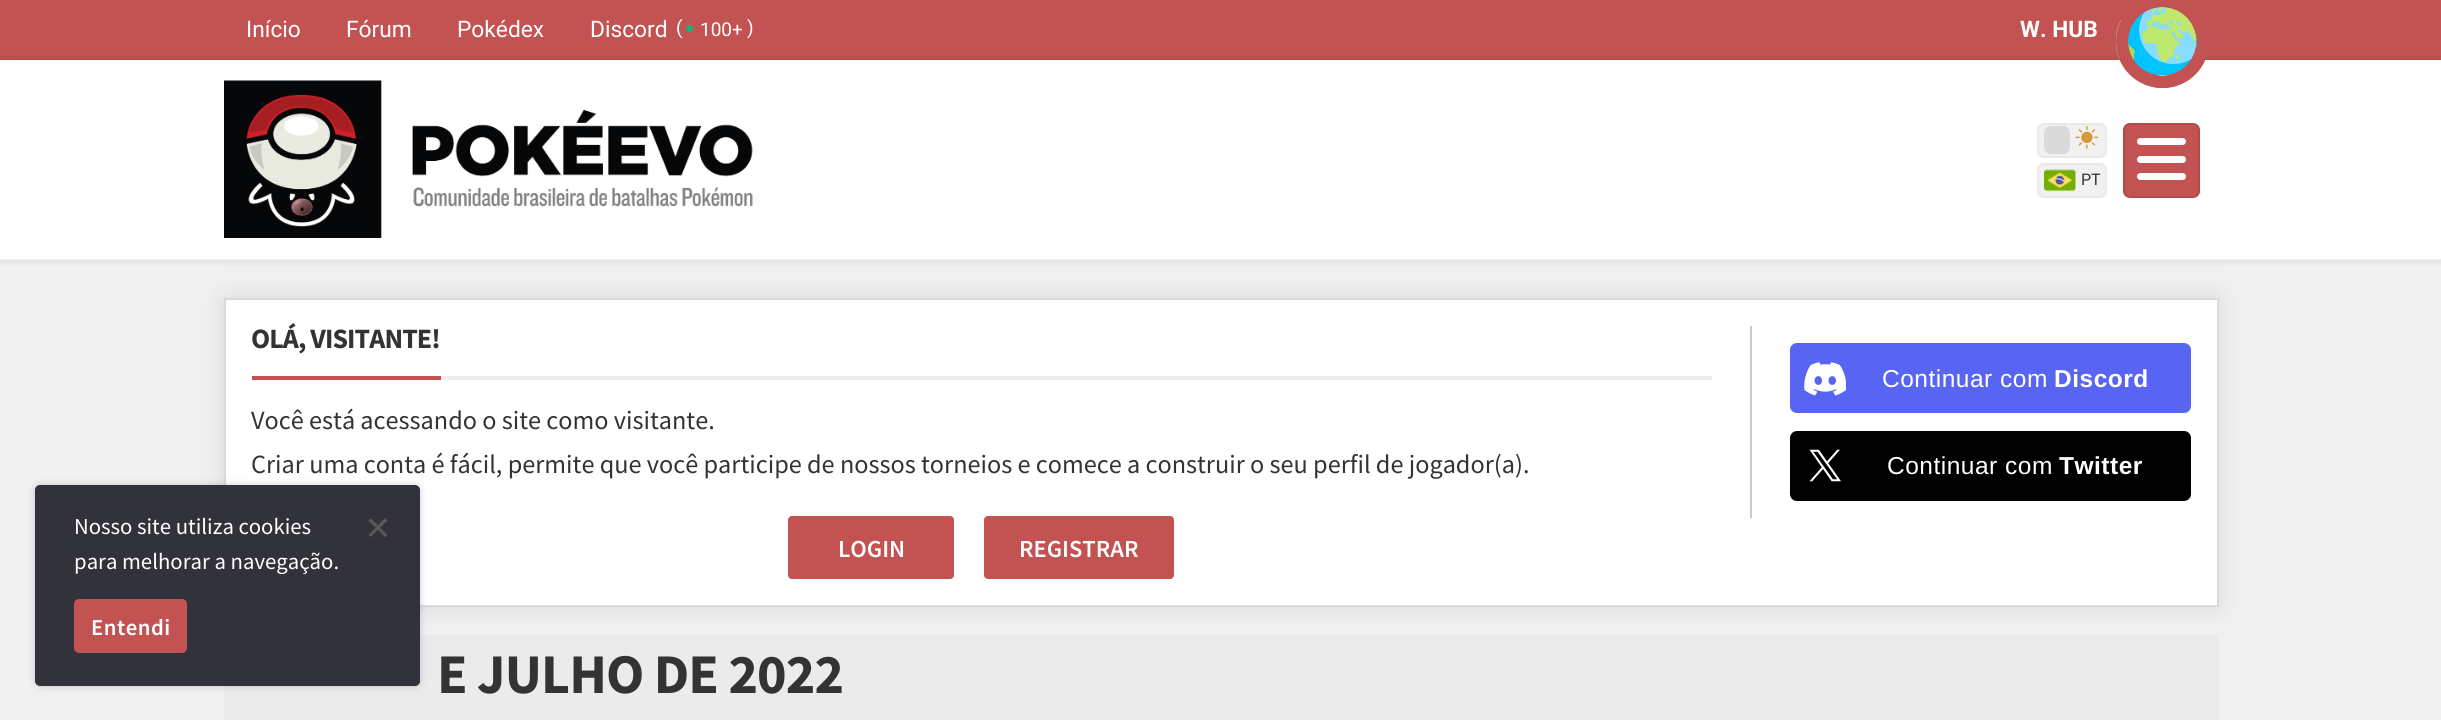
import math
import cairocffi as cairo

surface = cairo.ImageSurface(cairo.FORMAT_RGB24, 2441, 720)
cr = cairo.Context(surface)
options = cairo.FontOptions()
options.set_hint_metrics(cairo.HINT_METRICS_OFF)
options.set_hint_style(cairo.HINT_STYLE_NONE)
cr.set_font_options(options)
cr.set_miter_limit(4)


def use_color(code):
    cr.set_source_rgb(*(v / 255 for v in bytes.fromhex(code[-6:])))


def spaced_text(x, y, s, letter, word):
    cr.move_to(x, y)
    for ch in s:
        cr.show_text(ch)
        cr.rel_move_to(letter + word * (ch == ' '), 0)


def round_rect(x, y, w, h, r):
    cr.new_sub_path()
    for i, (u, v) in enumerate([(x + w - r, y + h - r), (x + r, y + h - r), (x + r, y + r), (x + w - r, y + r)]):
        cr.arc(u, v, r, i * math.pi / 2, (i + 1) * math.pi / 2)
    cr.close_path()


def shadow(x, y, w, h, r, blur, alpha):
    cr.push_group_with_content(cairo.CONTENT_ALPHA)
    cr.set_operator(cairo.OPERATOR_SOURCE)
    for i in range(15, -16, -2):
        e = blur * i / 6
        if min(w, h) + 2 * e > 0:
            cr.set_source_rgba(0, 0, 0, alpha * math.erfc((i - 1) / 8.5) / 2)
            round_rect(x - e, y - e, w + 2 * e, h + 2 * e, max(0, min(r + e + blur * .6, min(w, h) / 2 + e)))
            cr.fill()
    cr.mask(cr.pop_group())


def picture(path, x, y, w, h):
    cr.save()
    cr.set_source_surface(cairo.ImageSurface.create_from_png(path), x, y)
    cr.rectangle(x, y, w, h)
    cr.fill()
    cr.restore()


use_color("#f1f1f1")
cr.paint()
use_color("#c35252")
cr.rectangle(0, 0, 2441, 60)
cr.fill()
cr.select_font_face("Roboto")
cr.set_font_size(22.75)
use_color("#ffffff")
cr.move_to(246, 37)
cr.show_text("Início")
cr.move_to(346, 37)
cr.show_text("Fórum")
cr.move_to(457, 37)
cr.show_text("Pokédex")
cr.move_to(590, 37)
cr.show_text("Discord")
cr.set_font_size(19)
cr.move_to(676, 34)
cr.show_text("(")
use_color("#1db26c")
cr.new_path()
cr.arc(689.5, 28.5, 3.5, 0, 2 * math.pi)
cr.fill()
use_color("#ffffff")
cr.move_to(700, 36)
cr.show_text("100+")
cr.move_to(747, 34)
cr.show_text(")")
cr.select_font_face("Roboto", cairo.FONT_SLANT_NORMAL, cairo.FONT_WEIGHT_BOLD)
cr.set_font_size(22.75)
cr.move_to(2020, 37)
cr.show_text("W. HUB")
use_color("#0d0d0d")
shadow(0, 60, 2441, 201, 0, 3.5, 0.15)
use_color("#ffffff")
cr.rectangle(0, 60, 2441, 199)
cr.fill()
use_color("#c35252")
cr.arc(2162.5, 41.5, 46.5, 0, 2 * math.pi)
cr.fill()
picture("img1.png", 2115, 0, 94, 88)
cr.arc(2162.5, 41.5, 40.5, 0, 2 * math.pi)
cr.set_line_width(12)
cr.stroke()
use_color("#e9e9e9")
cr.rectangle(0, 259, 2441, 2)
cr.fill()
picture("img2.png", 224, 80, 529, 158)
use_color("#f1f1f1")
round_rect(2038, 124, 68, 33, 6)
cr.fill_preserve()
use_color("#e9e9e9")
cr.set_line_width(2)
cr.stroke()
use_color("#dadada")
round_rect(2044, 126, 26, 28, 7)
cr.fill()
picture("img3.png", 2075, 126, 24, 23)
use_color("#c35252")
round_rect(2123, 123, 77, 75, 7)
cr.fill()
round_rect(2124, 124, 75, 73, 6)
cr.set_source_rgba(0.051, 0.051, 0.051, 0.1)
cr.stroke()
use_color("#ffffff")
cr.new_path()
cr.move_to(2140.5, 138)
cr.line_to(2163, 138)
cr.line_to(2163, 145)
cr.line_to(2140.5, 145)
cr.curve_to(2138.5, 145, 2137, 143.5, 2137, 141.5)
cr.curve_to(2137, 139.5, 2138.5, 138, 2140.5, 138)
cr.close_path()
cr.fill()
cr.new_path()
cr.move_to(2158, 138)
cr.line_to(2182.5, 138)
cr.curve_to(2184.5, 138, 2186, 139.5, 2186, 141.5)
cr.curve_to(2186, 143.5, 2184.5, 145, 2182.5, 145)
cr.line_to(2158, 145)
cr.close_path()
cr.fill()
cr.new_path()
cr.move_to(2140.5, 156)
cr.line_to(2163, 156)
cr.line_to(2163, 163)
cr.line_to(2140.5, 163)
cr.curve_to(2138.5, 163, 2137, 161.5, 2137, 159.5)
cr.curve_to(2137, 157.5, 2138.5, 156, 2140.5, 156)
cr.close_path()
cr.fill()
cr.new_path()
cr.move_to(2158, 156)
cr.line_to(2182.5, 156)
cr.curve_to(2184.5, 156, 2186, 157.5, 2186, 159.5)
cr.curve_to(2186, 161.5, 2184.5, 163, 2182.5, 163)
cr.line_to(2158, 163)
cr.close_path()
cr.fill()
cr.new_path()
cr.move_to(2140.5, 173)
cr.line_to(2163, 173)
cr.line_to(2163, 180)
cr.line_to(2140.5, 180)
cr.curve_to(2138.5, 180, 2137, 178.5, 2137, 176.5)
cr.curve_to(2137, 174.5, 2138.5, 173, 2140.5, 173)
cr.close_path()
cr.fill()
cr.new_path()
cr.move_to(2158, 173)
cr.line_to(2182.5, 173)
cr.curve_to(2184.5, 173, 2186, 174.5, 2186, 176.5)
cr.curve_to(2186, 178.5, 2184.5, 180, 2182.5, 180)
cr.line_to(2158, 180)
cr.close_path()
cr.fill()
use_color("#f1f1f1")
round_rect(2038, 164, 68, 33, 6)
cr.fill_preserve()
use_color("#e9e9e9")
cr.stroke()
picture("img4.png", 2044, 169, 32, 23)
cr.select_font_face("Roboto")
cr.set_font_size(16)
use_color("#333333")
cr.move_to(2081, 185)
cr.show_text("PT")
use_color("#ebebeb")
cr.rectangle(224, 635, 1995, 85)
cr.fill()
use_color("#dadada")
shadow(224, 298, 1995, 309, 0, 13, 1)
use_color("#ffffff")
cr.rectangle(225, 299, 1993, 307)
cr.fill_preserve()
use_color("#dadada")
cr.stroke()
use_color("#000000")
shadow(35, 485, 385, 201, 5, 3.5, 0.2)
use_color("#32323a")
round_rect(35, 485, 385, 201, 5)
cr.fill()
cr.select_font_face("Source Sans Pro")
cr.set_font_size(22.75)
use_color("#ffffff")
cr.move_to(74, 534)
cr.show_text("Nosso site utiliza cookies")
cr.move_to(74, 569)
cr.show_text("para melhorar a navegação.")
use_color("#59595d")
cr.new_path()
cr.move_to(385, 518)
cr.line_to(387.5, 520.5)
cr.line_to(370.5, 537)
cr.line_to(368.5, 535)
cr.close_path()
cr.fill()
cr.new_path()
cr.move_to(368.5, 520.5)
cr.line_to(370.5, 518)
cr.line_to(387.5, 535)
cr.line_to(385, 537)
cr.close_path()
cr.fill()
use_color("#c35252")
round_rect(74, 599, 113, 54, 5)
cr.fill()
cr.select_font_face("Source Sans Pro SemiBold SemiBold")
use_color("#ffffff")
spaced_text(91, 635, "Entendi", 0.5, 0)
use_color("#ececec")
cr.rectangle(441, 376, 1271, 4)
cr.fill()
use_color("#c35252")
cr.rectangle(252, 376, 189, 4)
cr.fill()
cr.select_font_face("Source Sans Pro", cairo.FONT_SLANT_NORMAL, cairo.FONT_WEIGHT_BOLD)
cr.set_font_size(28)
use_color("#333333")
spaced_text(251, 348, "OLÁ, VISITANTE!", -0.9, 0)
cr.select_font_face("Source Sans Pro")
cr.set_font_size(26.25)
cr.move_to(251, 429)
cr.show_text("Você está acessando o site como visitante.")
cr.move_to(251, 473)
cr.show_text("Criar uma conta é fácil, permite que você participe de nossos torneios e comece a construir o seu perfil de jogador(a).")
use_color("#c35252")
round_rect(788, 516, 166, 63, 4)
cr.fill()
cr.select_font_face("Source Sans Pro SemiBold SemiBold")
cr.set_font_size(24.5)
use_color("#ffffff")
cr.move_to(838, 557)
cr.show_text("LOGIN")
use_color("#c35252")
round_rect(984, 516, 190, 63, 4)
cr.fill()
use_color("#ffffff")
cr.move_to(1019, 557)
cr.show_text("REGISTRAR")
use_color("#cacaca")
cr.rectangle(1750, 326, 2, 192)
cr.fill()
use_color("#5865f2")
round_rect(1790, 343, 401, 70, 7)
cr.fill()
picture("img5.png", 1804, 362, 42, 34)
cr.select_font_face("Liberation Sans")
use_color("#ffffff")
spaced_text(1882, 387, "Continuar com", 0.5, 0)
cr.select_font_face("Liberation Sans", cairo.FONT_SLANT_NORMAL, cairo.FONT_WEIGHT_BOLD)
spaced_text(2054, 387, "Discord", 0.5, 0)
use_color("#000000")
round_rect(1790, 431, 401, 70, 7)
cr.fill()
picture("img6.png", 1809, 449, 32, 33)
cr.select_font_face("Liberation Sans")
use_color("#ffffff")
spaced_text(1887, 474, "Continuar com", 0.5, 0)
cr.select_font_face("Liberation Sans", cairo.FONT_SLANT_NORMAL, cairo.FONT_WEIGHT_BOLD)
spaced_text(2059, 474, "Twitter", 0.5, 0)
cr.select_font_face("Source Sans Pro", cairo.FONT_SLANT_NORMAL, cairo.FONT_WEIGHT_BOLD)
cr.set_font_size(56)
use_color("#333333")
spaced_text(437, 693, "E JULHO DE 2022", -0.9, 0)
surface.write_to_png("result.png")
